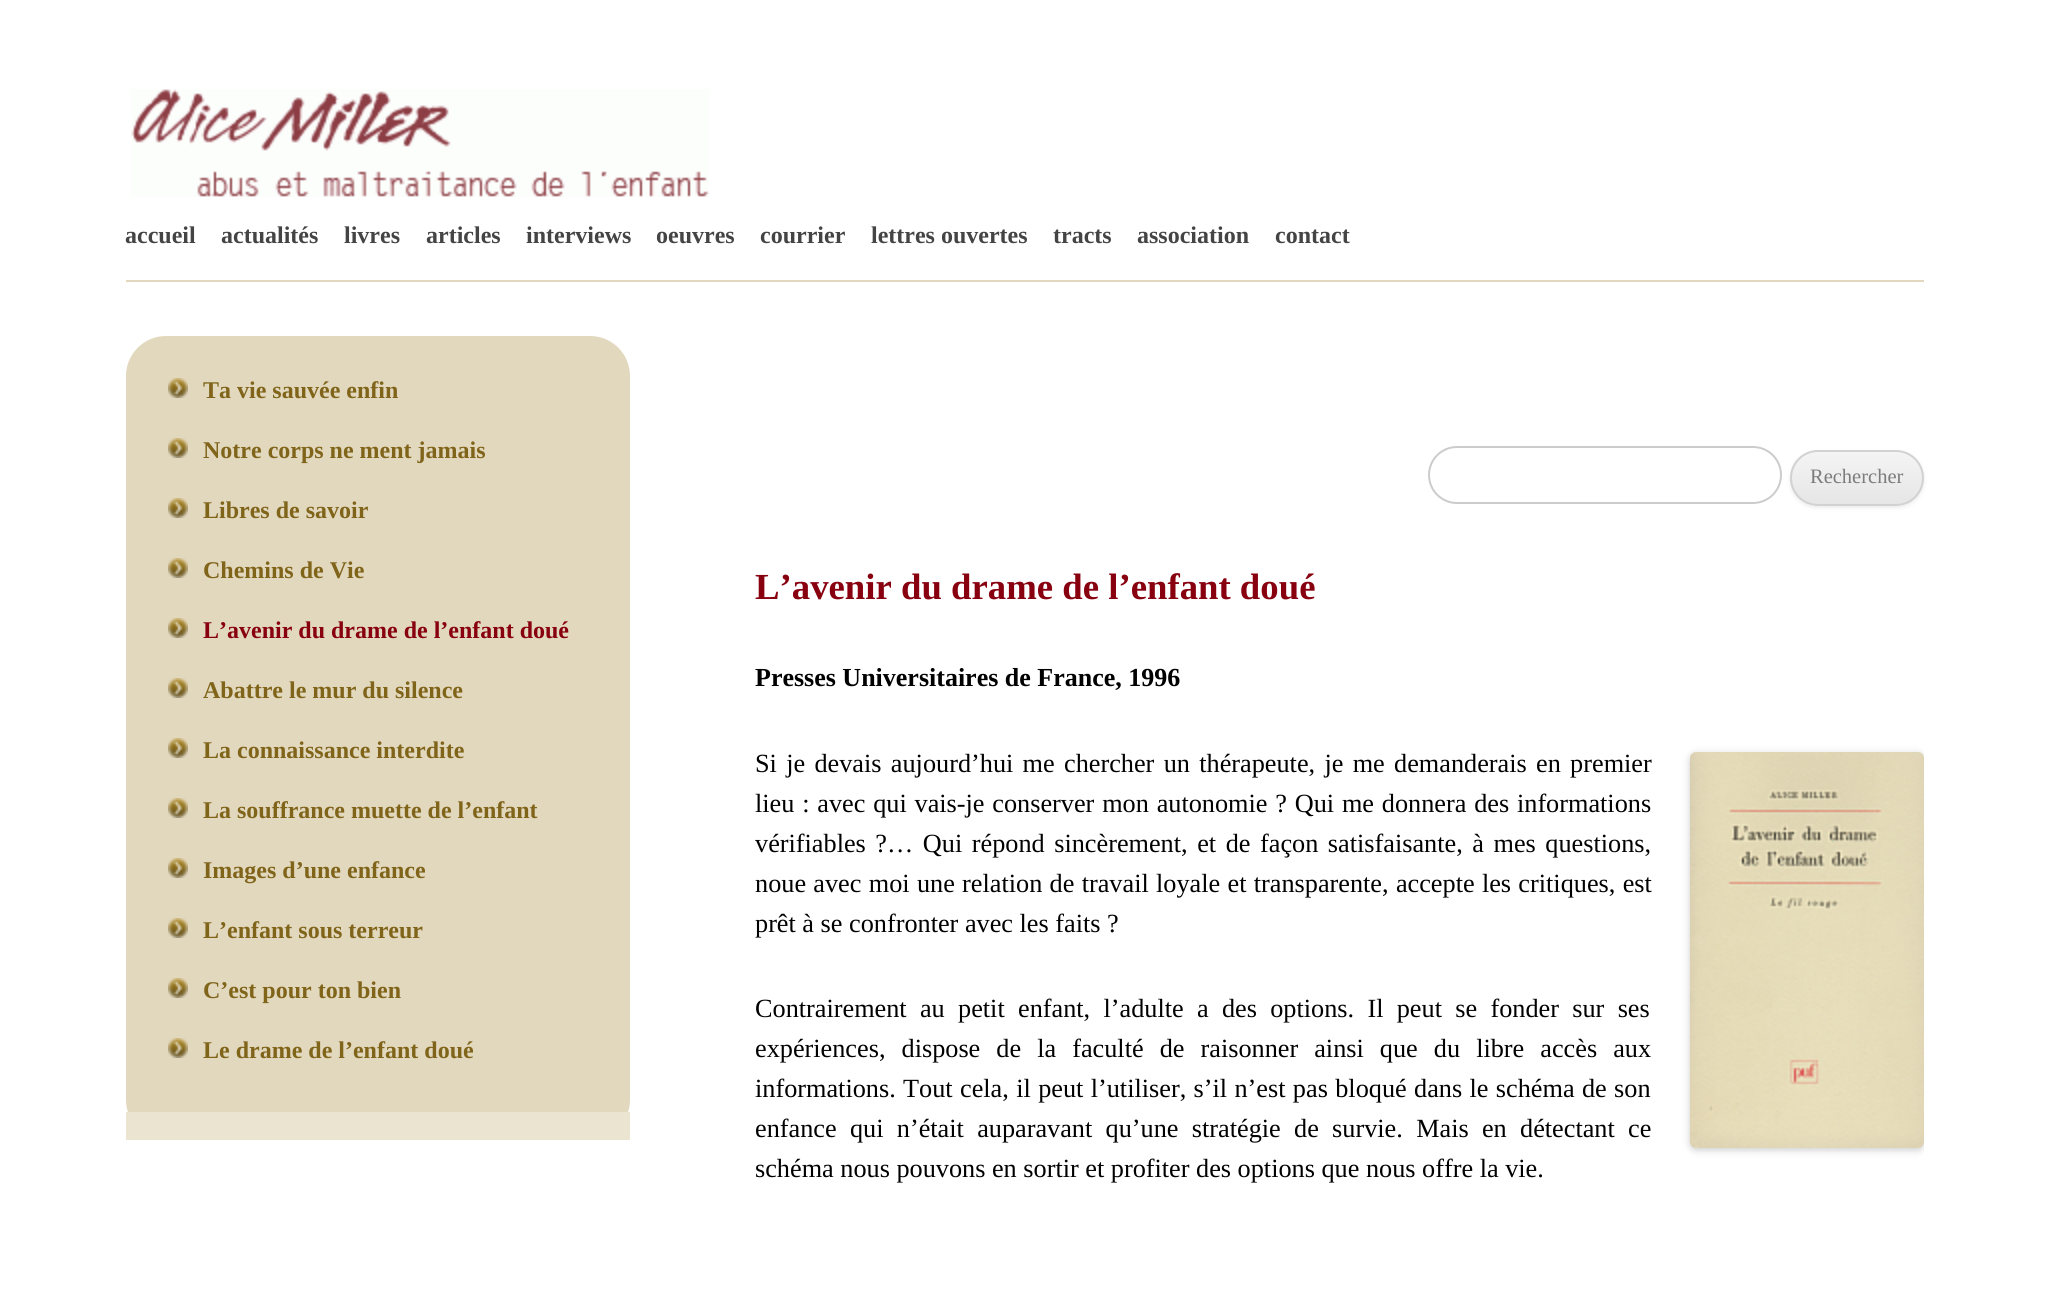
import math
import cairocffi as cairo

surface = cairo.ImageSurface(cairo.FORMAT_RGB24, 2050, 1293)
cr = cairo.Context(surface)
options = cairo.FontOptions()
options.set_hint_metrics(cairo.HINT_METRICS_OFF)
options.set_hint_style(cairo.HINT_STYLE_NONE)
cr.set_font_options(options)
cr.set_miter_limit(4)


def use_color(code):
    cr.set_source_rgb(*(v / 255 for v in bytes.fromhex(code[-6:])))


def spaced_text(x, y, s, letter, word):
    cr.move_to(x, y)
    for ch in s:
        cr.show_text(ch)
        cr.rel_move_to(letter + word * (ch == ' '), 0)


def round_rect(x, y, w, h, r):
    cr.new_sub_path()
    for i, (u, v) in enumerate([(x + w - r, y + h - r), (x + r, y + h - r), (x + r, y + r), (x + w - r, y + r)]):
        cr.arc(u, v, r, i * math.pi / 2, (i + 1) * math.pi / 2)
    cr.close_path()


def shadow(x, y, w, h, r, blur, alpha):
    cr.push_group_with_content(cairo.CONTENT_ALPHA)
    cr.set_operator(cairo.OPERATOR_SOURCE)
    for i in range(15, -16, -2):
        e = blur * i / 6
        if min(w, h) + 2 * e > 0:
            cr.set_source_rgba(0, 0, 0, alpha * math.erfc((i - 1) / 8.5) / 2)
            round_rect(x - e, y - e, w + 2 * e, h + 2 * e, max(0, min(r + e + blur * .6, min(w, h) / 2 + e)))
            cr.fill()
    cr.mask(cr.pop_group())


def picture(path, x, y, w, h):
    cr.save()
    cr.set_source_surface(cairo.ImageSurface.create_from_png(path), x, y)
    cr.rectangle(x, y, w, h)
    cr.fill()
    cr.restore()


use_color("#ffffff")
cr.paint()
picture("img1.png", 131, 89, 578, 108)
use_color("#e2d8bd")
cr.rectangle(126, 280, 1798, 2)
cr.fill()
cr.select_font_face("Liberation Serif", cairo.FONT_SLANT_NORMAL, cairo.FONT_WEIGHT_BOLD)
cr.set_font_size(24)
use_color("#444444")
cr.move_to(125, 243)
cr.show_text("accueil")
cr.move_to(221, 243)
cr.show_text("actualités")
cr.move_to(344, 243)
cr.show_text("livres")
cr.move_to(426, 243)
cr.show_text("articles")
cr.move_to(526, 243)
cr.show_text("interviews")
cr.move_to(656, 243)
cr.show_text("oeuvres")
cr.move_to(760, 243)
cr.show_text("courrier")
cr.move_to(871, 243)
cr.show_text("lettres ouvertes")
cr.move_to(1053, 243)
cr.show_text("tracts")
cr.move_to(1137, 243)
cr.show_text("association")
cr.move_to(1275, 243)
cr.show_text("contact")
round_rect(1429, 447, 352, 56, 28)
use_color("#cccccc")
cr.stroke()
cr.save()
cr.set_fill_rule(cairo.FILL_RULE_EVEN_ODD)
cr.new_path()
cr.move_to(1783, 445)
cr.line_to(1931, 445)
cr.line_to(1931, 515)
cr.line_to(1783, 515)
cr.close_path()
cr.move_to(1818, 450)
cr.line_to(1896, 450)
cr.curve_to(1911.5, 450, 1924, 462.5, 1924, 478)
cr.curve_to(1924, 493.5, 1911.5, 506, 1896, 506)
cr.line_to(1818, 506)
cr.curve_to(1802.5, 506, 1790, 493.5, 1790, 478)
cr.curve_to(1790, 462.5, 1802.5, 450, 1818, 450)
cr.close_path()
cr.clip()
use_color("#404040")
shadow(1790, 452, 134, 56, 28, 2, 0.1)
cr.restore()
cr.save()
round_rect(1790, 450, 134, 56, 28)
cr.clip()
gradient = cairo.LinearGradient(1857, 452, 1857, 504)
gradient.add_color_stop_rgba(0, 0.957, 0.957, 0.957, 1)
gradient.add_color_stop_rgba(1, 0.902, 0.902, 0.902, 1)
cr.set_source(gradient)
cr.rectangle(1790, 452, 134, 52)
cr.fill()
cr.restore()
round_rect(1791, 451, 132, 54, 27)
use_color("#d2d2d2")
cr.stroke()
cr.select_font_face("Liberation Serif")
cr.set_font_size(20.5)
use_color("#7c7c7c")
cr.move_to(1810, 483)
cr.show_text("Rechercher")
use_color("#e2d8bd")
round_rect(126, 336, 504, 804, 40)
cr.fill()
picture("img2.png", 168, 378, 20, 20)
cr.select_font_face("Liberation Serif", cairo.FONT_SLANT_NORMAL, cairo.FONT_WEIGHT_BOLD)
cr.set_font_size(24)
use_color("#80641a")
cr.move_to(203, 398)
cr.show_text("Ta vie sauvée enfin")
picture("img2.png", 168, 438, 20, 20)
cr.move_to(203, 458)
cr.show_text("Notre corps ne ment jamais")
picture("img2.png", 168, 498, 20, 20)
cr.move_to(203, 518)
cr.show_text("Libres de savoir")
picture("img2.png", 168, 558, 20, 20)
cr.move_to(203, 578)
cr.show_text("Chemins de Vie")
picture("img2.png", 168, 618, 20, 20)
use_color("#88000f")
cr.move_to(203, 638)
cr.show_text("L’avenir du drame de l’enfant doué")
picture("img2.png", 168, 678, 20, 20)
use_color("#80641a")
cr.move_to(203, 698)
cr.show_text("Abattre le mur du silence")
picture("img2.png", 168, 738, 20, 20)
cr.move_to(203, 758)
cr.show_text("La connaissance interdite")
picture("img2.png", 168, 798, 20, 20)
cr.move_to(203, 818)
cr.show_text("La souffrance muette de l’enfant")
picture("img2.png", 168, 858, 20, 20)
cr.move_to(203, 878)
cr.show_text("Images d’une enfance")
picture("img2.png", 168, 918, 20, 20)
cr.move_to(203, 938)
cr.show_text("L’enfant sous terreur")
picture("img2.png", 168, 978, 20, 20)
cr.move_to(203, 998)
cr.show_text("C’est pour ton bien")
picture("img2.png", 168, 1038, 20, 20)
cr.move_to(203, 1058)
cr.show_text("Le drame de l’enfant doué")
use_color("#ebe4d1")
cr.rectangle(126, 1112, 504, 28)
cr.fill()
cr.set_font_size(36.75)
use_color("#88000f")
cr.move_to(755, 599)
cr.show_text("L’avenir du drame de l’enfant doué")
cr.set_font_size(26)
use_color("#000000")
cr.move_to(755, 686)
cr.show_text("Presses Universitaires de France, 1996")
cr.select_font_face("Liberation Serif")
cr.set_font_size(26.25)
spaced_text(755, 772, "Si je devais aujourd’hui me chercher un thérapeute, je me demanderais en premier", 0, 2.75)
spaced_text(755, 812, "lieu : avec qui vais-je conserver mon autonomie ? Qui me donnera des informations", 0, 1.25)
spaced_text(755, 852, "vérifiables ?… Qui répond sincèrement, et de façon satisfaisante, à mes questions,", 0, 3)
spaced_text(755, 892, "noue avec moi une relation de travail loyale et transparente, accepte les critiques, est", 0, 0.75)
cr.move_to(755, 932)
cr.show_text("prêt à se confronter avec les faits ?")
cr.save()
cr.rectangle(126, 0, 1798, 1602)
cr.clip()
use_color("#000000")
shadow(1690, 754, 234, 396, 6, 4, 0.2)
cr.restore()
picture("img3.png", 1690, 752, 234, 396)
spaced_text(755, 1017, "Contrairement au petit enfant, l’adulte a des options. Il peut se fonder sur ses", 0, 6.75)
spaced_text(755, 1057, "expériences, dispose de la faculté de raisonner ainsi que du libre accès aux", 0, 9.5)
spaced_text(755, 1097, "informations. Tout cela, il peut l’utiliser, s’il n’est pas bloqué dans le schéma de son", 0, 0.8)
spaced_text(755, 1137, "enfance qui n’était auparavant qu’une stratégie de survie. Mais en détectant ce", 0, 6.75)
cr.move_to(755, 1177)
cr.show_text("schéma nous pouvons en sortir et profiter des options que nous offre la vie.")
surface.write_to_png("result.png")
